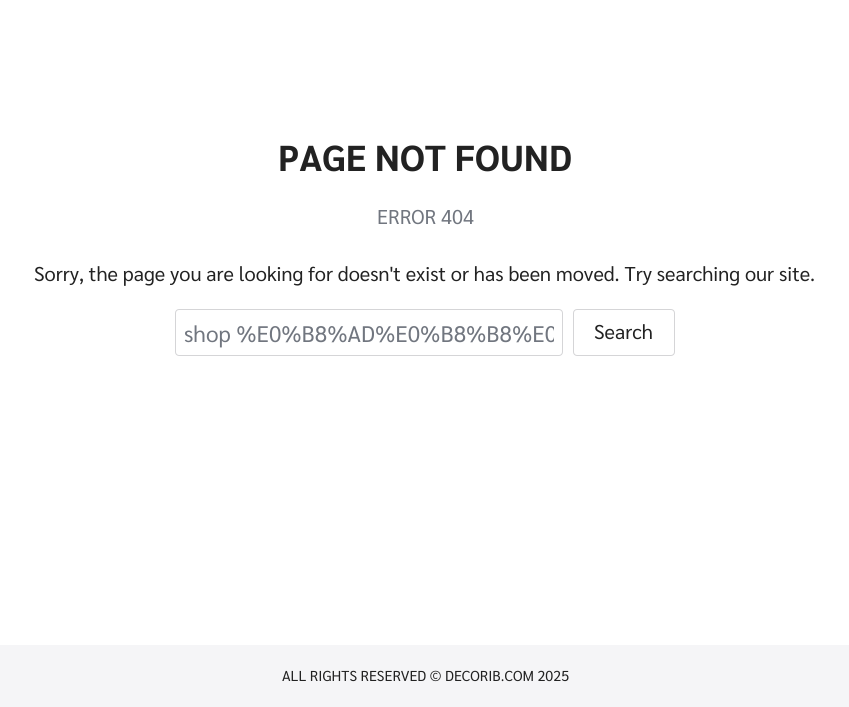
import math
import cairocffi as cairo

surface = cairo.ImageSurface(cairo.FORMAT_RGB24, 849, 707)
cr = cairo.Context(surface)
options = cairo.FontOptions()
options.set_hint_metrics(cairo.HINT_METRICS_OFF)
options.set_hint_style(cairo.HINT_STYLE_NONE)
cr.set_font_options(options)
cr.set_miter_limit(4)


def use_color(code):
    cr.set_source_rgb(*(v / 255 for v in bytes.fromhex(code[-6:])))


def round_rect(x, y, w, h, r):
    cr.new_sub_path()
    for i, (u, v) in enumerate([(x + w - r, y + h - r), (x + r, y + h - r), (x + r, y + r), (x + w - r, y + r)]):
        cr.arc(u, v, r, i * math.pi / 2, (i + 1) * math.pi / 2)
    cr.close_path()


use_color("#ffffff")
cr.paint()
cr.select_font_face("Sarabun", cairo.FONT_SLANT_NORMAL, cairo.FONT_WEIGHT_BOLD)
cr.set_font_size(36)
use_color("#222222")
cr.move_to(278, 171)
cr.show_text("PAGE NOT FOUND")
cr.select_font_face("Sarabun")
cr.set_font_size(20)
use_color("#71767f")
cr.move_to(377, 224)
cr.show_text("ERROR 404")
use_color("#222222")
cr.move_to(34, 281)
cr.show_text("Sorry, the page you are looking for doesn't exist or has been moved. Try searching our site.")
round_rect(175.5, 309.5, 387, 46, 3.5)
use_color("#d5d5d7")
cr.set_line_width(1)
cr.stroke()
cr.save()
cr.rectangle(184, 318, 370, 30)
cr.clip()
cr.set_font_size(22.5)
use_color("#71767f")
cr.move_to(184, 342)
cr.show_text("shop %E0%B8%AD%E0%B8%B8%E0")
cr.restore()
round_rect(573.5, 309.5, 101, 46, 3.5)
cr.stroke()
use_color("#222222")
cr.move_to(594, 339)
cr.show_text("Search")
use_color("#f5f5f7")
cr.rectangle(0, 645, 849, 62)
cr.fill()
cr.set_font_size(14.4)
use_color("#222222")
cr.move_to(282, 681)
cr.show_text("ALL RIGHTS RESERVED © DECORIB.COM 2025")
surface.write_to_png("result.png")
